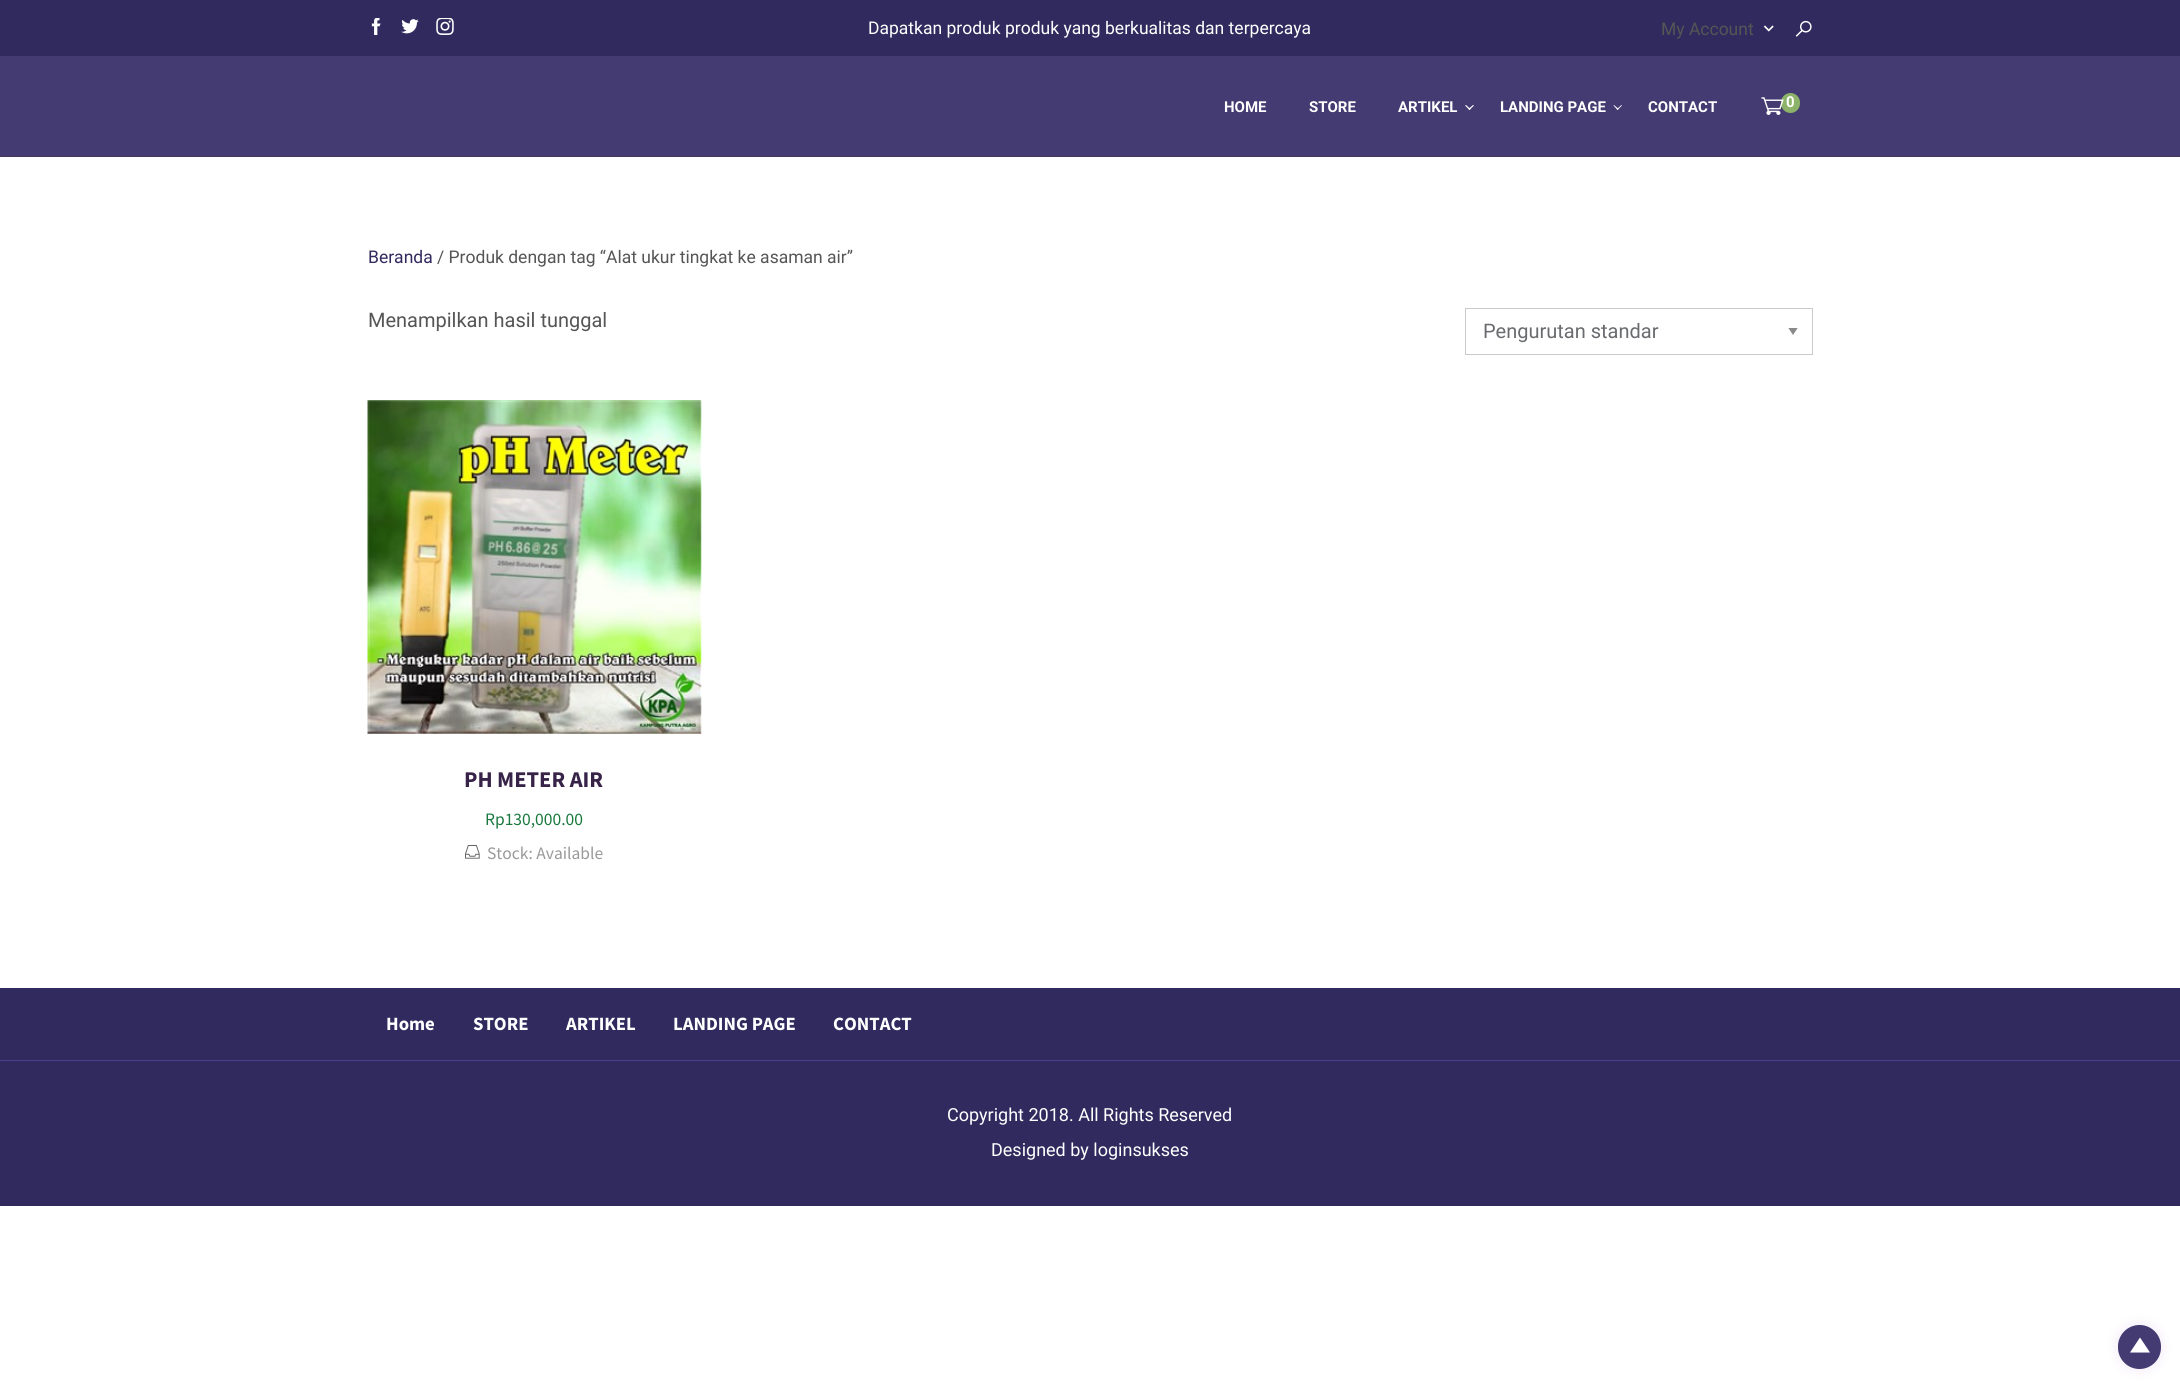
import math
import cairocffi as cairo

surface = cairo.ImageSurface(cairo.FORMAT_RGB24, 2180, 1393)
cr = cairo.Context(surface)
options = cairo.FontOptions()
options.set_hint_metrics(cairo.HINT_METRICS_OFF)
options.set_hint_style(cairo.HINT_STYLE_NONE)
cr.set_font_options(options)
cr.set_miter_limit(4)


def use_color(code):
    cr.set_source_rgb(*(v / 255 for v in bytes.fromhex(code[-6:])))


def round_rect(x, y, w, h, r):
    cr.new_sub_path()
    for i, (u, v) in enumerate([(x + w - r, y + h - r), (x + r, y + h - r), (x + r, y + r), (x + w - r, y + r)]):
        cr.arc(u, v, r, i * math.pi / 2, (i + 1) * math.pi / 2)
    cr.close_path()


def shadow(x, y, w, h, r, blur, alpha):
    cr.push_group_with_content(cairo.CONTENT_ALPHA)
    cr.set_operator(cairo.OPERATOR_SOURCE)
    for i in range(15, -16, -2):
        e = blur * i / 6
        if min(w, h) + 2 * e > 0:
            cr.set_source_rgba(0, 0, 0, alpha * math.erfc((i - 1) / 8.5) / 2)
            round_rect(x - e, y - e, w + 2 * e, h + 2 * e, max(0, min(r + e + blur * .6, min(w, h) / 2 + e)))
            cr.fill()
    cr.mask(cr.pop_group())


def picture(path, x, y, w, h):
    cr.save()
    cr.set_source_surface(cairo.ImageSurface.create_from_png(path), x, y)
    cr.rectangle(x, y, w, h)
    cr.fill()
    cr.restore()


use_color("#ffffff")
cr.paint()
use_color("#312a5e")
cr.rectangle(0, 0, 2180, 56)
cr.fill()
picture("img1.png", 371, 18, 10, 17)
picture("img2.png", 401, 19, 18, 15)
picture("img3.png", 436, 18, 18, 17)
cr.select_font_face("Roboto")
cr.set_font_size(17.5)
use_color("#ffffff")
cr.move_to(868, 34)
cr.show_text("Dapatkan produk produk yang berkualitas dan terpercaya")
use_color("#555555")
cr.move_to(1661, 35)
cr.show_text("My Account")
picture("img4.png", 1763, 25, 11, 7)
picture("img5.png", 1795, 20, 17, 17)
use_color("#433b71")
cr.rectangle(0, 56, 2180, 100)
cr.fill()
use_color("#493658")
cr.rectangle(0, 156, 2180, 1)
cr.fill()
cr.select_font_face("Roboto", cairo.FONT_SLANT_NORMAL, cairo.FONT_WEIGHT_BOLD)
cr.set_font_size(15)
use_color("#ffffff")
cr.move_to(1224, 112)
cr.show_text("HOME")
cr.move_to(1309, 112)
cr.show_text("STORE")
cr.move_to(1398, 112)
cr.show_text("ARTIKEL")
cr.new_path()
cr.move_to(1473, 105)
cr.line_to(1474, 105.5)
cr.line_to(1469.5, 110)
cr.line_to(1468.5, 109)
cr.close_path()
cr.fill()
cr.new_path()
cr.move_to(1466, 105)
cr.line_to(1470.5, 109)
cr.line_to(1469.5, 110)
cr.line_to(1465, 105.5)
cr.close_path()
cr.fill()
cr.move_to(1500, 112)
cr.show_text("LANDING PAGE")
cr.new_path()
cr.move_to(1621.5, 105)
cr.line_to(1622, 105.5)
cr.line_to(1617.5, 110)
cr.line_to(1617, 109)
cr.close_path()
cr.fill()
cr.new_path()
cr.move_to(1614, 105)
cr.line_to(1618.5, 109)
cr.line_to(1617.5, 110)
cr.line_to(1613.5, 105.5)
cr.close_path()
cr.fill()
cr.move_to(1648, 112)
cr.show_text("CONTACT")
use_color("#8cb369")
round_rect(1781, 93, 19, 20, 9.5)
cr.fill()
picture("img6.png", 1761, 97, 23, 18)
use_color("#ffffff")
cr.move_to(1786, 107)
cr.show_text("0")
cr.select_font_face("Roboto")
cr.set_font_size(17.5)
use_color("#312a5e")
cr.move_to(368, 263)
cr.show_text("Beranda")
use_color("#555555")
cr.move_to(437, 263)
cr.show_text("/ Produk dengan tag “Alat ukur tingkat ke asaman air”")
cr.set_font_size(20)
cr.move_to(368, 327)
cr.show_text("Menampilkan hasil tunggal")
cr.save()
cr.rectangle(1788, 328, 11, 7)
cr.clip()
use_color("#8a8a8a")
cr.new_path()
cr.move_to(1788, 327.5)
cr.line_to(1798, 327.5)
cr.line_to(1793, 335)
cr.close_path()
cr.fill()
cr.restore()
cr.rectangle(1465.5, 308.5, 347, 46)
use_color("#cacaca")
cr.set_line_width(1)
cr.stroke()
use_color("#6a6b6f")
cr.move_to(1483, 338)
cr.show_text("Pengurutan standar")
picture("img7.png", 367, 400, 335, 334)
cr.select_font_face("Source Sans Pro", cairo.FONT_SLANT_NORMAL, cairo.FONT_WEIGHT_BOLD)
cr.set_font_size(22.5)
use_color("#372248")
cr.move_to(464, 787)
cr.show_text("PH METER AIR")
cr.select_font_face("Source Sans Pro")
cr.set_font_size(17.5)
use_color("#19793e")
cr.move_to(485, 825)
cr.show_text("Rp130,000.00")
picture("img8.png", 465, 845, 15, 14)
use_color("#999999")
cr.move_to(487, 859)
cr.show_text("Stock: Available")
use_color("#312a5e")
cr.rectangle(0, 988, 2180, 72)
cr.fill()
cr.select_font_face("Source Sans Pro", cairo.FONT_SLANT_NORMAL, cairo.FONT_WEIGHT_BOLD)
cr.set_font_size(18.75)
use_color("#ffffff")
cr.move_to(386, 1030)
cr.show_text("Home")
cr.move_to(473, 1030)
cr.show_text("STORE")
cr.move_to(566, 1030)
cr.show_text("ARTIKEL")
cr.move_to(673, 1030)
cr.show_text("LANDING PAGE")
cr.move_to(833, 1030)
cr.show_text("CONTACT")
use_color("#312a5e")
cr.rectangle(0, 1061, 2180, 145)
cr.fill()
use_color("#4a3f8d")
cr.rectangle(0, 1060, 2180, 1)
cr.fill()
cr.select_font_face("Roboto")
cr.set_font_size(18)
use_color("#ffffff")
cr.move_to(947, 1121)
cr.show_text("Copyright 2018. All Rights Reserved")
cr.move_to(991, 1156)
cr.show_text("Designed by loginsukses")
use_color("#6a0aab")
shadow(2118, 1325, 43, 44, 21.5, 6, 0.1)
use_color("#433b71")
round_rect(2118, 1325, 43, 44, 21.5)
cr.fill()
use_color("#ffffff")
cr.new_path()
cr.move_to(2140, 1337.5)
cr.line_to(2150, 1352.5)
cr.line_to(2130, 1352.5)
cr.close_path()
cr.fill()
surface.write_to_png("result.png")
